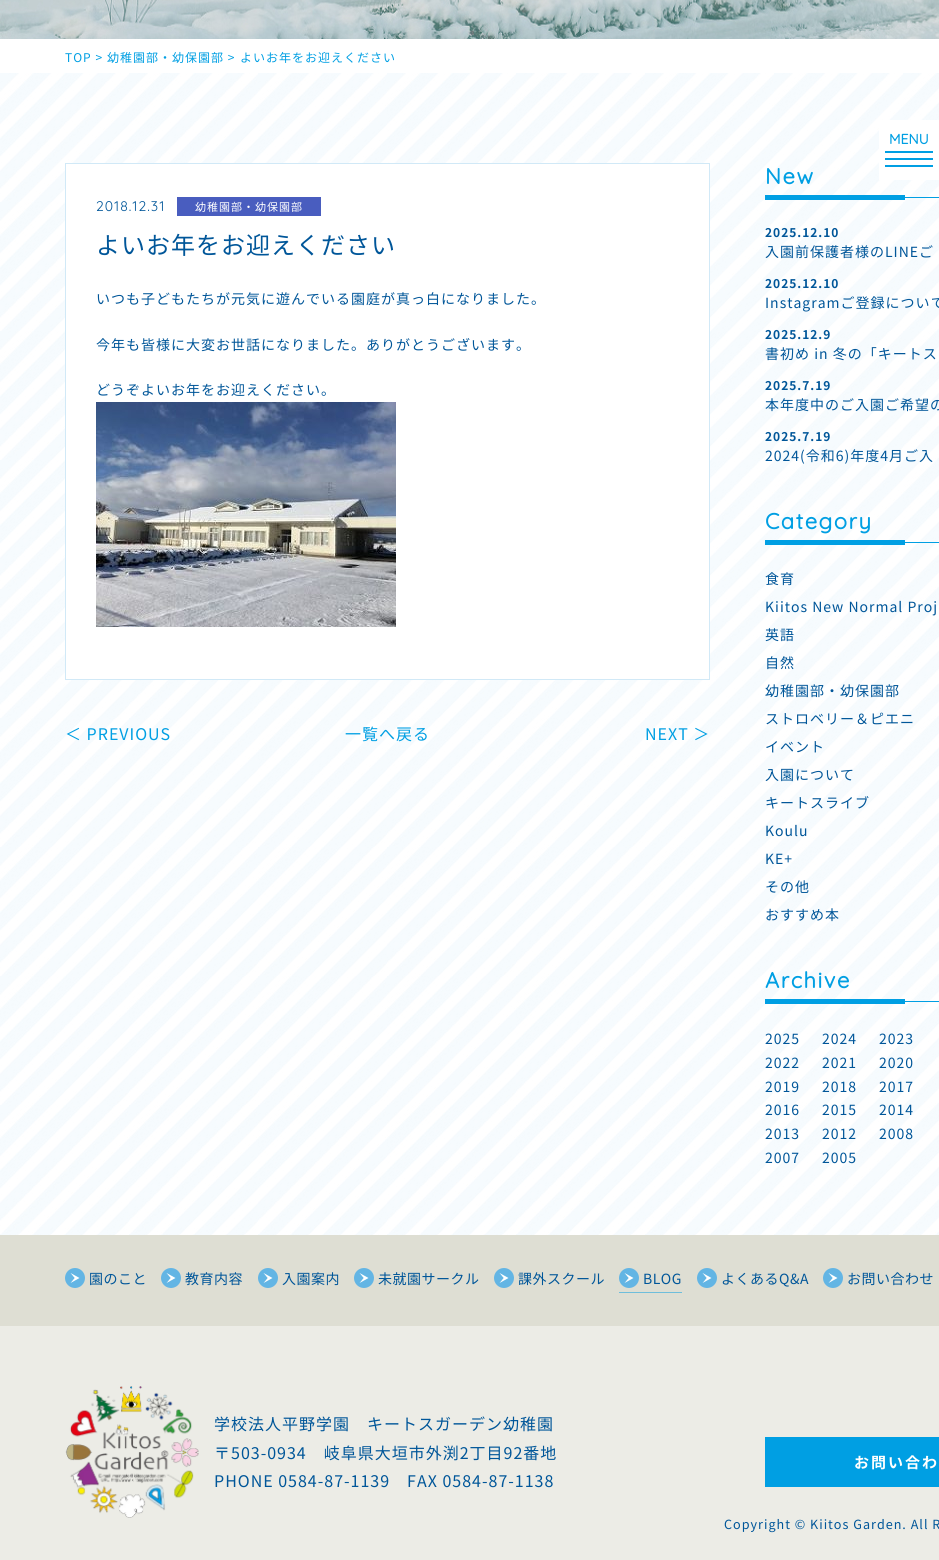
import math
import cairocffi as cairo

surface = cairo.ImageSurface(cairo.FORMAT_RGB24, 939, 1560)
cr = cairo.Context(surface)
options = cairo.FontOptions()
options.set_hint_metrics(cairo.HINT_METRICS_OFF)
options.set_hint_style(cairo.HINT_STYLE_NONE)
cr.set_font_options(options)
cr.set_miter_limit(4)


def use_color(code):
    cr.set_source_rgb(*(v / 255 for v in bytes.fromhex(code[-6:])))


def spaced_text(x, y, s, letter, word):
    cr.move_to(x, y)
    for ch in s:
        cr.show_text(ch)
        cr.rel_move_to(letter + word * (ch == ' '), 0)


def picture(path, x, y, w, h):
    cr.save()
    cr.set_source_surface(cairo.ImageSurface.create_from_png(path), x, y)
    cr.rectangle(x, y, w, h)
    cr.fill()
    cr.restore()


use_color("#ffffff")
cr.paint()
picture("img1.png", 0, 0, 939, 39)
cr.select_font_face("Noto Sans JP")
cr.set_font_size(12)
use_color("#009fe3")
spaced_text(65, 62, "TOP >", 1, 0)
spaced_text(107, 62, "幼稚園部・幼保園部 >", 1, 0)
spaced_text(240, 62, "よいお年をお迎えください", 1, 0)
picture("img2.png", 0, 73, 939, 1162)
use_color("#ffffff")
cr.rectangle(879, 120, 60, 60)
cr.fill()
cr.select_font_face("Quicksand", cairo.FONT_SLANT_NORMAL, cairo.FONT_WEIGHT_BOLD)
cr.set_font_size(14)
use_color("#009fe3")
cr.move_to(889, 144)
cr.show_text("MENU")
cr.rectangle(885, 151, 48, 2)
cr.fill()
cr.rectangle(885, 158, 48, 2)
cr.fill()
cr.rectangle(885, 165, 48, 2)
cr.fill()
use_color("#ffffff")
cr.rectangle(65.5, 163.5, 644, 516)
cr.fill_preserve()
use_color("#d1e9f7")
cr.set_line_width(1)
cr.stroke()
cr.select_font_face("Quicksand Light")
use_color("#005699")
spaced_text(96, 211, "2018.12.31", 1, 0)
use_color("#495dbf")
cr.rectangle(177, 197, 144, 19)
cr.fill()
cr.select_font_face("Noto Sans JP")
cr.set_font_size(11)
use_color("#ffffff")
spaced_text(195, 211, "幼稚園部・幼保園部", 1, 0)
cr.set_font_size(24)
use_color("#005699")
spaced_text(96, 254, "よいお年をお迎えください", 1, 0)
cr.set_font_size(14)
spaced_text(96, 304, "いつも子どもたちが元気に遊んでいる園庭が真っ白になりました。", 1, 0)
spaced_text(96, 350, "今年も皆様に大変お世話になりました。ありがとうございます。", 1, 0)
spaced_text(96, 395, "どうぞよいお年をお迎えください。", 1, 0)
picture("img3.png", 96, 402, 300, 225)
cr.set_font_size(16)
use_color("#009fe3")
spaced_text(65, 740, "＜ PREVIOUS", 1, 0)
spaced_text(345, 740, "一覧へ戻る", 1, 0)
spaced_text(645, 740, "NEXT ＞", 1, 0)
cr.rectangle(905, 197, 34, 1)
cr.fill()
cr.select_font_face("Quicksand", cairo.FONT_SLANT_NORMAL, cairo.FONT_WEIGHT_BOLD)
cr.set_font_size(22)
spaced_text(765, 184, "New", 1.5, 0)
cr.rectangle(765, 195, 140, 5)
cr.fill()
cr.select_font_face("Noto Sans JP", cairo.FONT_SLANT_NORMAL, cairo.FONT_WEIGHT_BOLD)
cr.set_font_size(12)
use_color("#005699")
spaced_text(765, 237, "2025.12.10", 1, 0)
cr.select_font_face("Noto Sans JP")
cr.set_font_size(14)
spaced_text(765, 257, "入園前保護者様のLINEご", 1, 0)
cr.select_font_face("Noto Sans JP", cairo.FONT_SLANT_NORMAL, cairo.FONT_WEIGHT_BOLD)
cr.set_font_size(12)
spaced_text(765, 288, "2025.12.10", 1, 0)
cr.select_font_face("Noto Sans JP")
cr.set_font_size(14)
spaced_text(765, 308, "Instagramご登録について", 1, 0)
cr.select_font_face("Noto Sans JP", cairo.FONT_SLANT_NORMAL, cairo.FONT_WEIGHT_BOLD)
cr.set_font_size(12)
spaced_text(765, 339, "2025.12.9", 1, 0)
cr.select_font_face("Noto Sans JP")
cr.set_font_size(14)
spaced_text(765, 359, "書初め in 冬の「キートス", 1, 0)
cr.select_font_face("Noto Sans JP", cairo.FONT_SLANT_NORMAL, cairo.FONT_WEIGHT_BOLD)
cr.set_font_size(12)
spaced_text(765, 390, "2025.7.19", 1, 0)
cr.select_font_face("Noto Sans JP")
cr.set_font_size(14)
spaced_text(765, 410, "本年度中のご入園ご希望の", 1, 0)
cr.select_font_face("Noto Sans JP", cairo.FONT_SLANT_NORMAL, cairo.FONT_WEIGHT_BOLD)
cr.set_font_size(12)
spaced_text(765, 441, "2025.7.19", 1, 0)
cr.select_font_face("Noto Sans JP")
cr.set_font_size(14)
spaced_text(765, 461, "2024(令和6)年度4月ご入", 1, 0)
use_color("#009fe3")
cr.rectangle(905, 542, 34, 1)
cr.fill()
cr.select_font_face("Quicksand", cairo.FONT_SLANT_NORMAL, cairo.FONT_WEIGHT_BOLD)
cr.set_font_size(22)
spaced_text(765, 529, "Category", 1.5, 0)
cr.rectangle(765, 540, 140, 5)
cr.fill()
cr.select_font_face("Noto Sans JP")
cr.set_font_size(14)
use_color("#005699")
spaced_text(765, 584, "食育", 1, 0)
spaced_text(765, 612, "Kiitos New Normal Proj", 1, 0)
spaced_text(765, 640, "英語", 1, 0)
spaced_text(765, 668, "自然", 1, 0)
spaced_text(765, 696, "幼稚園部・幼保園部", 1, 0)
spaced_text(765, 724, "ストロベリー＆ピエニ", 1, 0)
spaced_text(765, 752, "イベント", 1, 0)
spaced_text(765, 780, "入園について", 1, 0)
spaced_text(765, 808, "キートスライブ", 1, 0)
spaced_text(765, 836, "Koulu", 1, 0)
spaced_text(765, 864, "KE+", 1, 0)
spaced_text(765, 892, "その他", 1, 0)
spaced_text(765, 920, "おすすめ本", 1, 0)
use_color("#009fe3")
cr.rectangle(905, 1001, 34, 1)
cr.fill()
cr.select_font_face("Quicksand", cairo.FONT_SLANT_NORMAL, cairo.FONT_WEIGHT_BOLD)
cr.set_font_size(22)
spaced_text(765, 988, "Archive", 1.5, 0)
cr.rectangle(765, 999, 140, 5)
cr.fill()
cr.select_font_face("Noto Sans JP")
cr.set_font_size(14)
use_color("#005699")
spaced_text(765, 1044, "2025", 1, 0)
spaced_text(822, 1044, "2024", 1, 0)
spaced_text(879, 1044, "2023", 1, 0)
spaced_text(765, 1068, "2022", 1, 0)
spaced_text(822, 1068, "2021", 1, 0)
spaced_text(879, 1068, "2020", 1, 0)
spaced_text(765, 1092, "2019", 1, 0)
spaced_text(822, 1092, "2018", 1, 0)
spaced_text(879, 1092, "2017", 1, 0)
spaced_text(765, 1115, "2016", 1, 0)
spaced_text(822, 1115, "2015", 1, 0)
spaced_text(879, 1115, "2014", 1, 0)
spaced_text(765, 1139, "2013", 1, 0)
spaced_text(822, 1139, "2012", 1, 0)
spaced_text(879, 1139, "2008", 1, 0)
spaced_text(765, 1163, "2007", 1, 0)
spaced_text(822, 1163, "2005", 1, 0)
use_color("#deded3")
cr.rectangle(0, 1235, 939, 91)
cr.fill()
picture("img4.png", 65, 1268, 20, 20)
use_color("#005699")
spaced_text(89, 1284, "園のこと", 0.5, 0)
picture("img4.png", 161, 1268, 20, 20)
spaced_text(185, 1284, "教育内容", 0.5, 0)
picture("img4.png", 258, 1268, 20, 20)
spaced_text(282, 1284, "入園案内", 0.5, 0)
picture("img4.png", 354, 1268, 20, 20)
spaced_text(378, 1284, "未就園サークル", 0.5, 0)
picture("img4.png", 494, 1268, 20, 20)
spaced_text(518, 1284, "課外スクール", 0.5, 0)
picture("img4.png", 619, 1268, 20, 20)
use_color("#6fbedb")
cr.rectangle(619, 1292, 63, 1)
cr.fill()
use_color("#005699")
spaced_text(643, 1284, "BLOG", 0.5, 0)
picture("img4.png", 697, 1268, 20, 20)
spaced_text(721, 1284, "よくあるQ&A", 0.5, 0)
picture("img4.png", 823, 1268, 20, 20)
spaced_text(847, 1284, "お問い合わせ", 0.5, 0)
use_color("#ecece6")
cr.rectangle(0, 1326, 939, 234)
cr.fill()
picture("img5.png", 65, 1386, 134, 132)
cr.set_font_size(16)
use_color("#005699")
spaced_text(214, 1430, "学校法人平野学園", 1, 0)
spaced_text(367, 1430, "キートスガーデン幼稚園", 1, 0)
spaced_text(214, 1459, "〒503-0934　岐阜県大垣市外渕2丁目92番地", 1, 0)
spaced_text(214, 1487, "PHONE 0584-87-1139　FAX 0584-87-1138", 1, 0)
use_color("#009fe3")
cr.rectangle(765, 1437, 174, 50)
cr.fill()
cr.select_font_face("Noto Sans JP", cairo.FONT_SLANT_NORMAL, cairo.FONT_WEIGHT_BOLD)
cr.set_font_size(15)
use_color("#ffffff")
spaced_text(854, 1468, "お問い合わ", 2, 0)
cr.select_font_face("Noto Sans JP")
cr.set_font_size(12.6)
use_color("#005699")
spaced_text(724, 1529, "Copyright © Kiitos Garden. All R", 1, 0)
surface.write_to_png("result.png")
